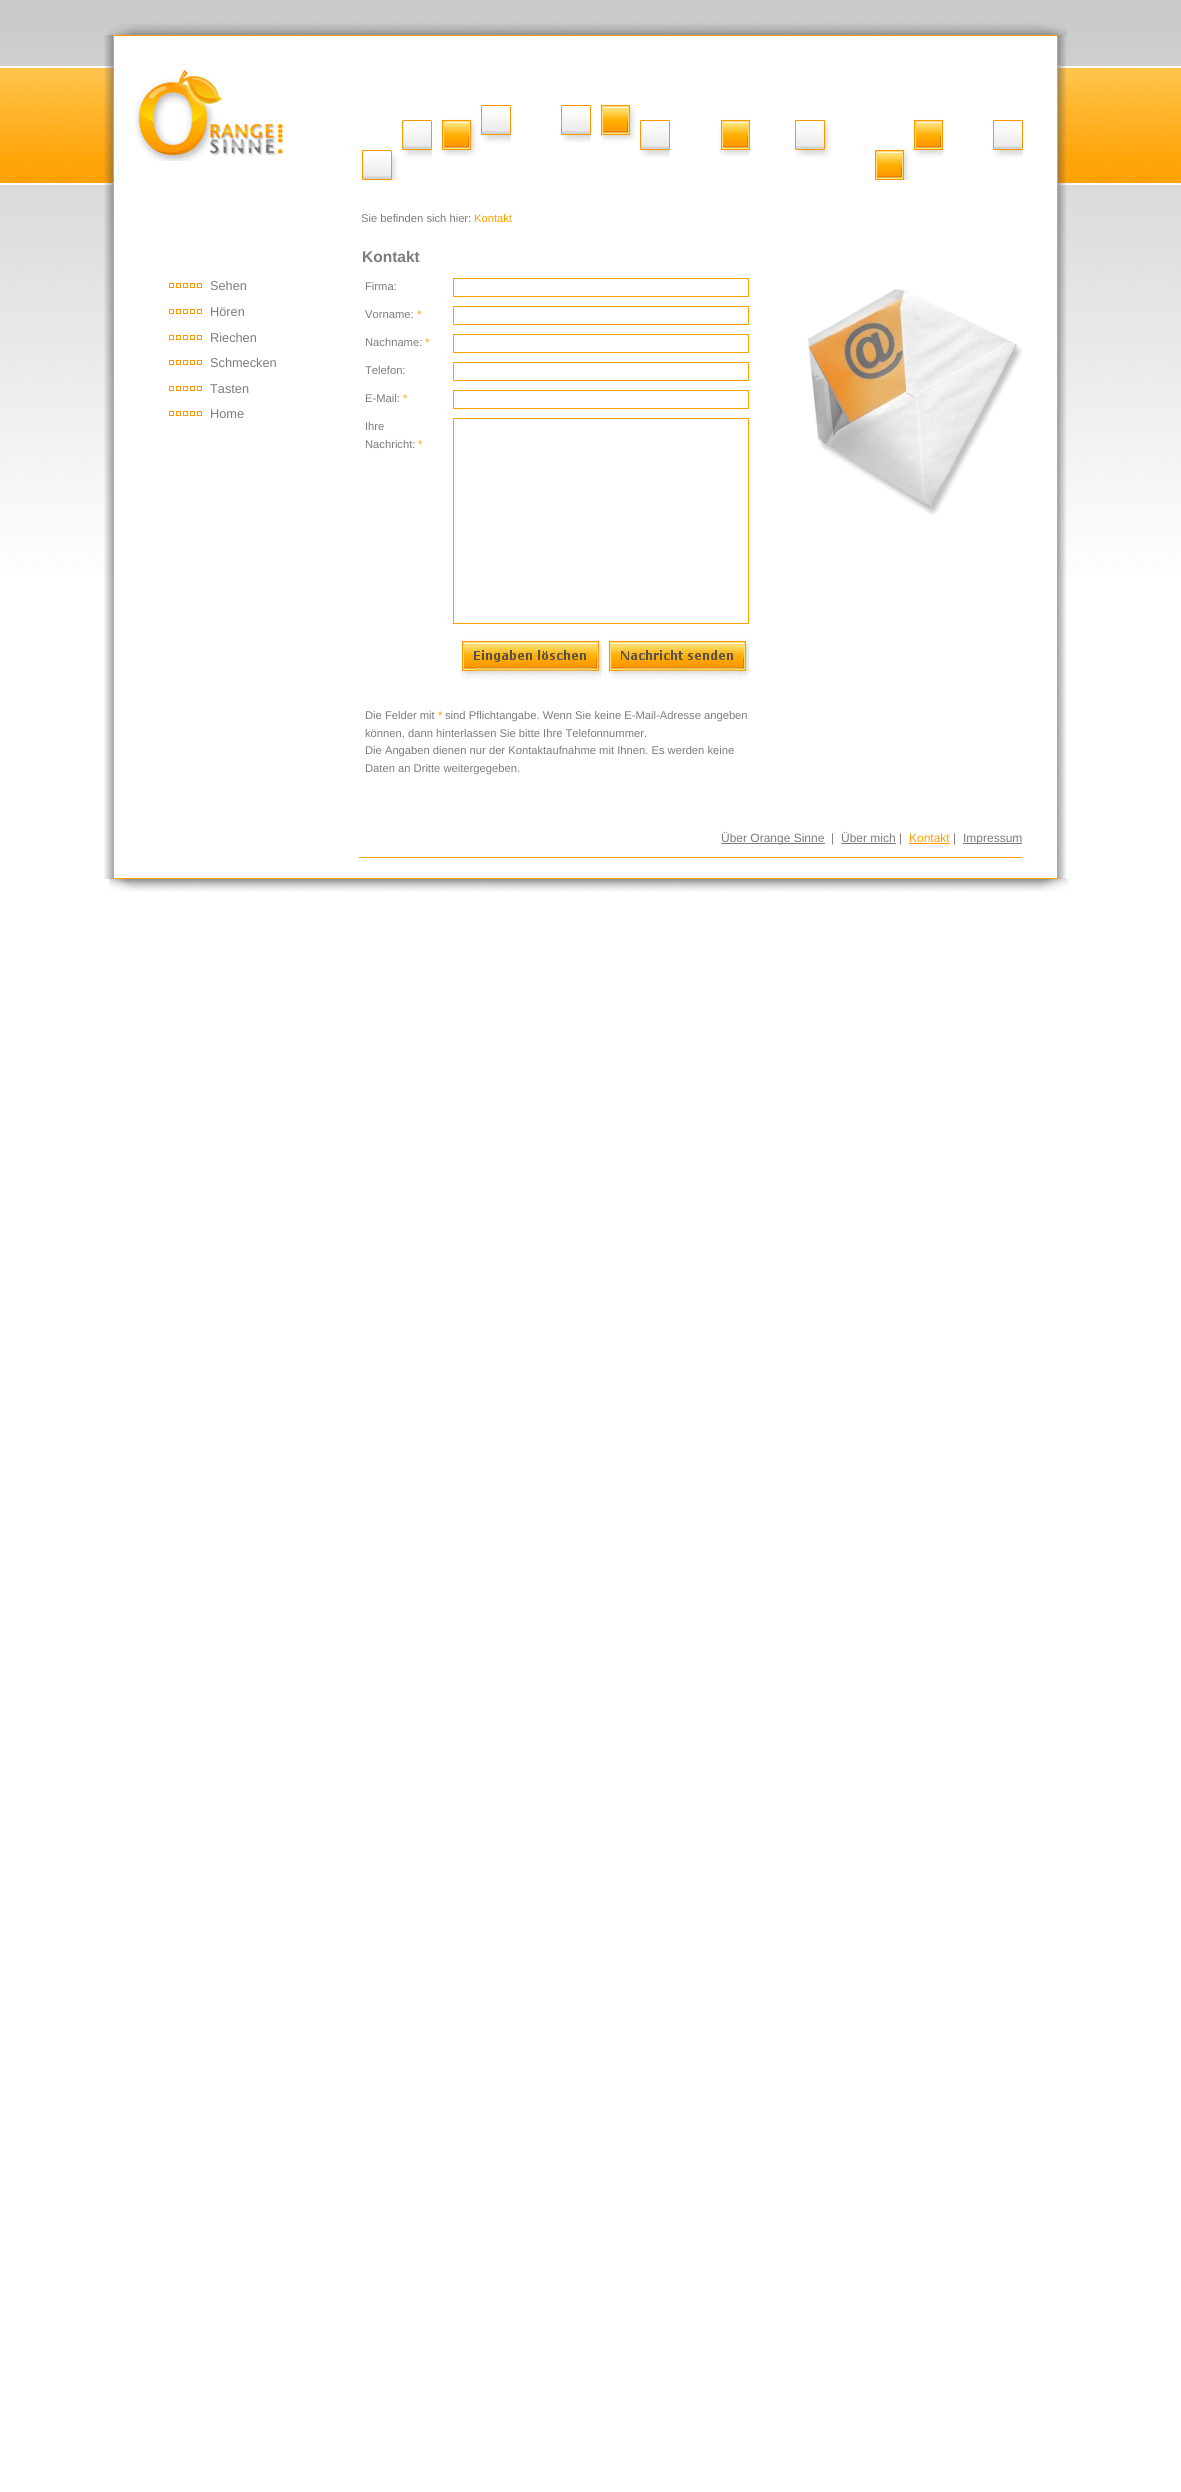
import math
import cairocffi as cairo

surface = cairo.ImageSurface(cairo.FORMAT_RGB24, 1181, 2492)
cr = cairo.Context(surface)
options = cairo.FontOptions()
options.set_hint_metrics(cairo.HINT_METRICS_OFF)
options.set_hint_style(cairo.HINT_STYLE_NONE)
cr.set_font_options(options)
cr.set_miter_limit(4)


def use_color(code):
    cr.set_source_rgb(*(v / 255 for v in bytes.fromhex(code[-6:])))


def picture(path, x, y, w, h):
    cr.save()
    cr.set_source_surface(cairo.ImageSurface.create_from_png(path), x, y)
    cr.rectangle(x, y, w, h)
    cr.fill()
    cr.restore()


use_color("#ffffff")
cr.paint()
picture("img1.png", 0, 0, 1181, 577)
picture("img2.png", 108, 23, 959, 12)
picture("img3.png", 104, 35, 963, 844)
use_color("#ffffff")
cr.rectangle(113.5, 35.5, 944, 843)
cr.fill_preserve()
use_color("#ffa000")
cr.set_line_width(1)
cr.stroke()
picture("img4.png", 134, 70, 150, 91)
picture("img5.png", 362, 120, 70, 60)
picture("img6.png", 442, 105, 69, 52)
picture("img7.png", 561, 105, 30, 38)
picture("img8.png", 601, 104, 69, 54)
picture("img9.png", 719, 119, 31, 38)
picture("img10.png", 795, 120, 36, 38)
picture("img11.png", 875, 119, 68, 61)
picture("img7.png", 993, 120, 30, 38)
cr.select_font_face("Liberation Sans")
cr.set_font_size(11.2)
use_color("#7c7c7c")
cr.move_to(361, 222)
cr.show_text("Sie befinden sich hier:")
use_color("#ffa000")
cr.move_to(474, 222)
cr.show_text("Kontakt")
picture("img12.png", 169, 283, 33, 5)
cr.set_font_size(12.75)
use_color("#7c7c7c")
cr.move_to(210, 290)
cr.show_text("Sehen")
picture("img12.png", 169, 309, 33, 5)
cr.move_to(210, 316)
cr.show_text("Hören")
picture("img12.png", 169, 335, 33, 5)
cr.move_to(210, 342)
cr.show_text("Riechen")
picture("img12.png", 169, 360, 33, 5)
cr.move_to(210, 367)
cr.show_text("Schmecken")
picture("img12.png", 169, 386, 33, 5)
cr.move_to(210, 393)
cr.show_text("Tasten")
picture("img12.png", 169, 411, 33, 5)
cr.move_to(210, 418)
cr.show_text("Home")
cr.select_font_face("Liberation Sans", cairo.FONT_SLANT_NORMAL, cairo.FONT_WEIGHT_BOLD)
cr.set_font_size(15.5)
cr.move_to(362, 262)
cr.show_text("Kontakt")
cr.select_font_face("Liberation Sans")
cr.set_font_size(11.2)
cr.move_to(365, 290)
cr.show_text("Firma:")
cr.rectangle(453.5, 278.5, 295, 18)
use_color("#ffa000")
cr.stroke()
use_color("#7c7c7c")
cr.move_to(365, 318)
cr.show_text("Vorname:")
use_color("#ffa000")
cr.move_to(417, 318)
cr.show_text("*")
cr.rectangle(453.5, 306.5, 295, 18)
cr.stroke()
use_color("#7c7c7c")
cr.move_to(365, 346)
cr.show_text("Nachname:")
use_color("#ffa000")
cr.move_to(425, 346)
cr.show_text("*")
cr.rectangle(453.5, 334.5, 295, 18)
cr.stroke()
use_color("#7c7c7c")
cr.move_to(365, 374)
cr.show_text("Telefon:")
cr.rectangle(453.5, 362.5, 295, 18)
use_color("#ffa000")
cr.stroke()
use_color("#7c7c7c")
cr.move_to(365, 402)
cr.show_text("E-Mail:")
use_color("#ffa000")
cr.move_to(403, 402)
cr.show_text("*")
cr.rectangle(453.5, 390.5, 295, 18)
cr.stroke()
use_color("#7c7c7c")
cr.move_to(365, 430)
cr.show_text("Ihre")
cr.move_to(365, 448)
cr.show_text("Nachricht:")
use_color("#ffa000")
cr.move_to(418, 448)
cr.show_text("*")
cr.rectangle(453.5, 418.5, 295, 205)
cr.stroke()
picture("img13.png", 460, 639, 142, 41)
picture("img14.png", 608, 639, 141, 41)
use_color("#7c7c7c")
cr.move_to(365, 719)
cr.show_text("Die Felder mit")
use_color("#ffa000")
cr.move_to(438, 719)
cr.show_text("*")
use_color("#7c7c7c")
cr.move_to(445, 719)
cr.show_text("sind Pflichtangabe. Wenn Sie keine E-Mail-Adresse angeben")
cr.move_to(365, 737)
cr.show_text("können, dann hinterlassen Sie bitte Ihre Telefonnummer.")
cr.move_to(365, 754)
cr.show_text("Die Angaben dienen nur der Kontaktaufnahme mit Ihnen. Es werden keine")
cr.move_to(365, 772)
cr.show_text("Daten an Dritte weitergegeben.")
picture("img15.png", 808, 289, 215, 226)
use_color("#ffa009")
cr.rectangle(359, 857, 663, 1)
cr.fill()
use_color("#7c7c7c")
cr.rectangle(721, 843, 104, 1)
cr.fill()
cr.set_font_size(12)
cr.move_to(721, 842)
cr.show_text("Über Orange Sinne")
cr.move_to(831, 842)
cr.show_text("|")
cr.rectangle(841, 843, 55, 1)
cr.fill()
cr.move_to(841, 842)
cr.show_text("Über mich |")
use_color("#ffa000")
cr.move_to(909, 842)
cr.show_text("Kontakt")
cr.rectangle(909, 843, 41, 1)
cr.fill()
use_color("#7c7c7c")
cr.move_to(953, 842)
cr.show_text("|")
cr.rectangle(963, 843, 59, 1)
cr.fill()
cr.move_to(963, 842)
cr.show_text("Impressum")
picture("img16.png", 109, 879, 959, 13)
surface.write_to_png("result.png")
